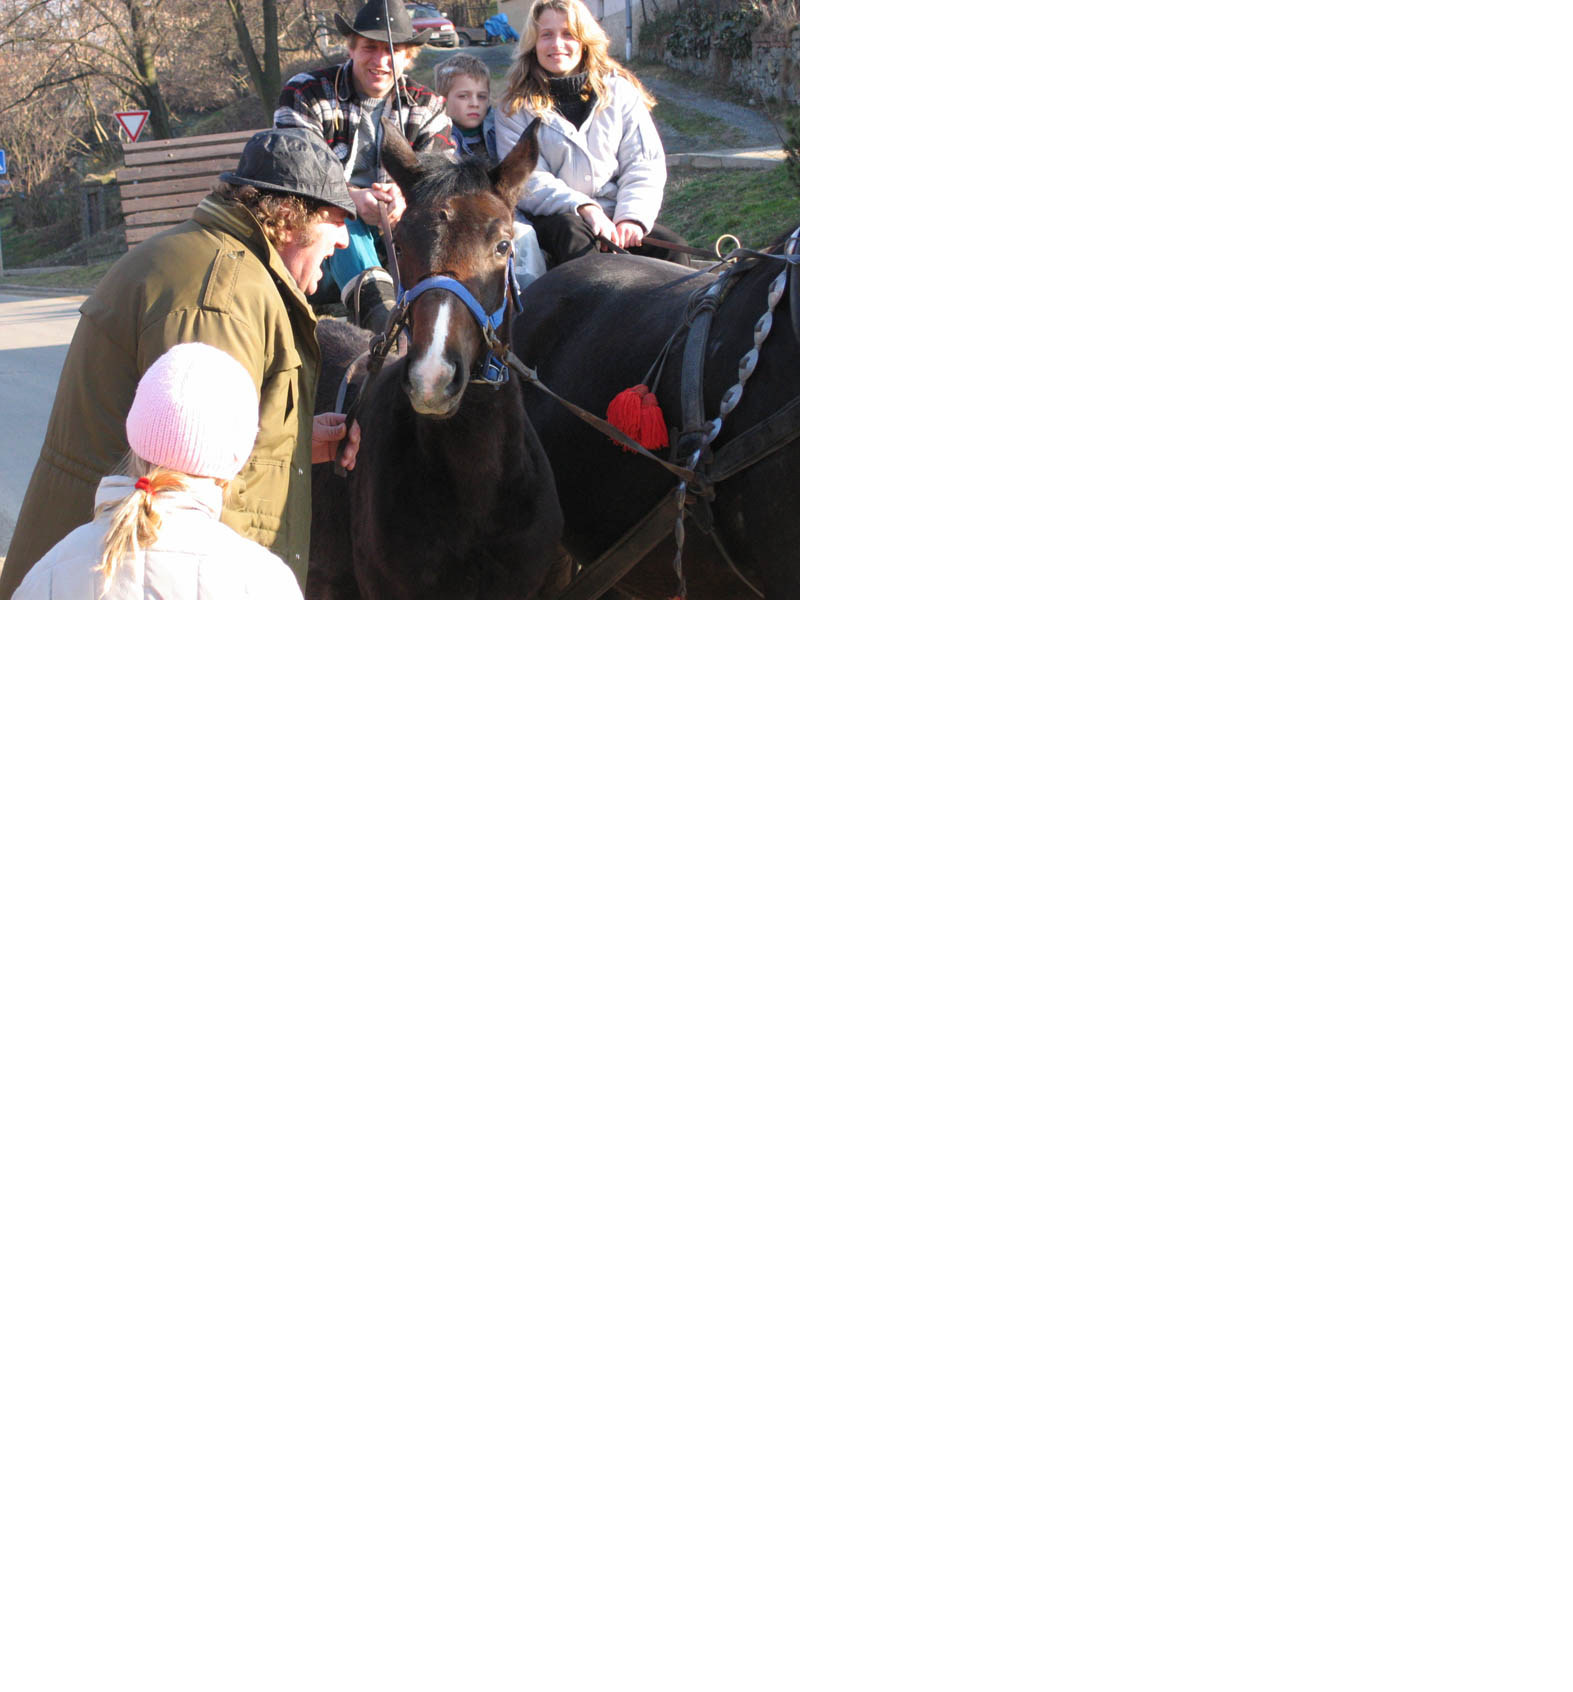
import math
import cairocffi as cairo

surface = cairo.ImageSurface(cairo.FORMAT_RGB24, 1573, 1692)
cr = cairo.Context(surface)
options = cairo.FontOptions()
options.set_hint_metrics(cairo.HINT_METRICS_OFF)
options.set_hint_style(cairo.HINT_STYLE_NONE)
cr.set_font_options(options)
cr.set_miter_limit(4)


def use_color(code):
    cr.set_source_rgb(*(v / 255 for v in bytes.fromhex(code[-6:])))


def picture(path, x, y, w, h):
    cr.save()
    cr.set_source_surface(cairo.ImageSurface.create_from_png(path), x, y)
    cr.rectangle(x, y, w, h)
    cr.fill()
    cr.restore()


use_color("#ffffff")
cr.paint()
picture("img1.png", 0, 0, 800, 600)
surface.write_to_png("result.png")
